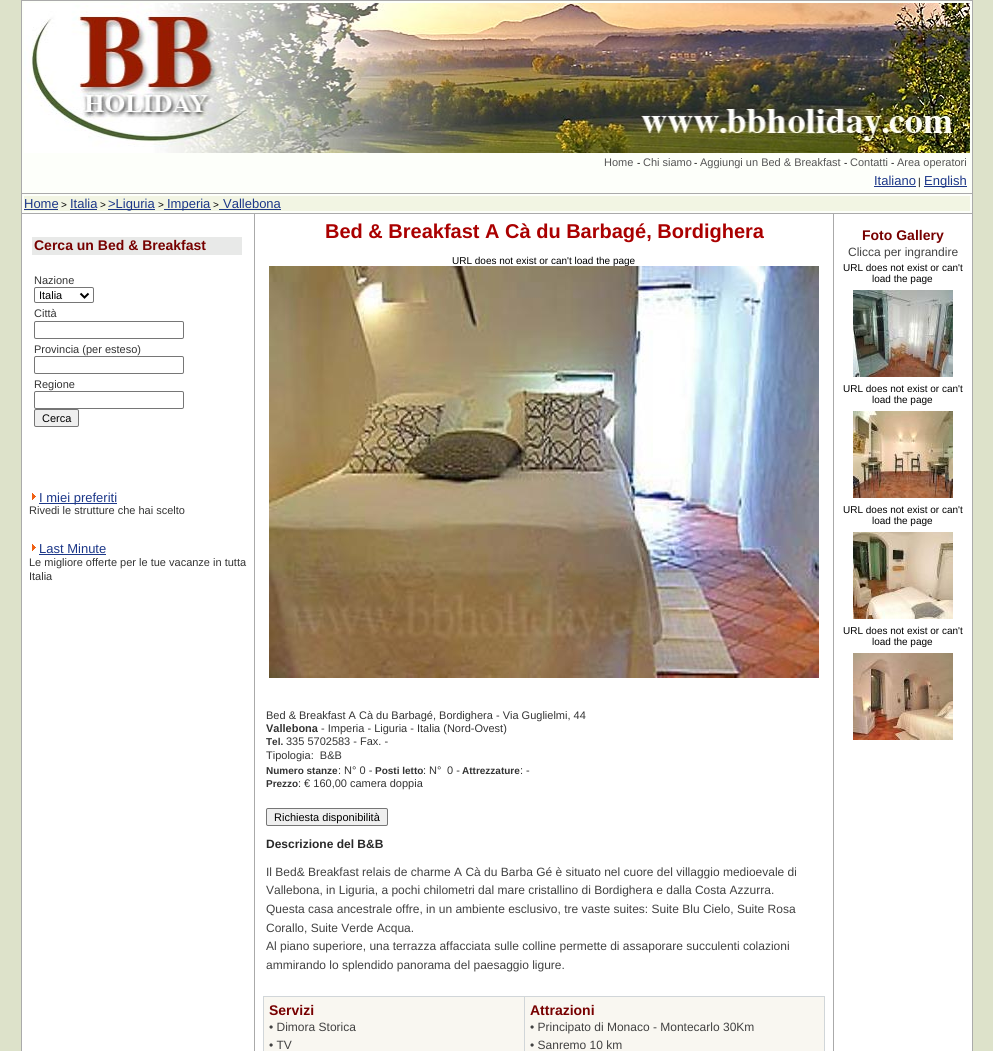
import math
import cairocffi as cairo

surface = cairo.ImageSurface(cairo.FORMAT_RGB24, 993, 1051)
cr = cairo.Context(surface)
options = cairo.FontOptions()
options.set_hint_metrics(cairo.HINT_METRICS_OFF)
options.set_hint_style(cairo.HINT_STYLE_NONE)
cr.set_font_options(options)
cr.set_miter_limit(4)


def use_color(code):
    cr.set_source_rgb(*(v / 255 for v in bytes.fromhex(code[-6:])))


def round_rect(x, y, w, h, r):
    cr.new_sub_path()
    for i, (u, v) in enumerate([(x + w - r, y + h - r), (x + r, y + h - r), (x + r, y + r), (x + w - r, y + r)]):
        cr.arc(u, v, r, i * math.pi / 2, (i + 1) * math.pi / 2)
    cr.close_path()


def picture(path, x, y, w, h):
    cr.save()
    cr.set_source_surface(cairo.ImageSurface.create_from_png(path), x, y)
    cr.rectangle(x, y, w, h)
    cr.fill()
    cr.restore()


use_color("#dde2ca")
cr.paint()
use_color("#aaaaaa")
cr.rectangle(21, 0, 952, 1051)
cr.fill()
use_color("#fdfffa")
cr.rectangle(22, 1, 950, 192)
cr.fill()
picture("img1.png", 24, 3, 946, 150)
cr.select_font_face("Liberation Sans")
cr.set_font_size(11)
use_color("#555555")
cr.move_to(604, 166)
cr.show_text("Home")
cr.set_font_size(10)
use_color("#000000")
cr.move_to(637, 166)
cr.show_text("-")
cr.set_font_size(11)
use_color("#555555")
cr.move_to(643, 166)
cr.show_text("Chi siamo")
cr.set_font_size(10)
use_color("#000000")
cr.move_to(694, 166)
cr.show_text("-")
cr.set_font_size(11)
use_color("#555555")
cr.move_to(700, 166)
cr.show_text("Aggiungi un Bed & Breakfast")
cr.set_font_size(10)
use_color("#000000")
cr.move_to(844, 166)
cr.show_text("-")
cr.set_font_size(11)
use_color("#555555")
cr.move_to(850, 166)
cr.show_text("Contatti")
cr.set_font_size(10)
use_color("#000000")
cr.move_to(891, 166)
cr.show_text("-")
cr.set_font_size(11)
use_color("#555555")
cr.move_to(897, 166)
cr.show_text("Area operatori")
cr.set_font_size(13)
use_color("#1c3788")
cr.move_to(874, 185)
cr.show_text("Italiano")
cr.rectangle(874, 186, 42, 1)
cr.fill()
cr.set_font_size(10)
use_color("#000000")
cr.move_to(918, 185)
cr.show_text("|")
use_color("#1c3788")
cr.rectangle(924, 186, 43, 1)
cr.fill()
cr.set_font_size(13)
cr.move_to(924, 185)
cr.show_text("English")
use_color("#fdfffa")
cr.rectangle(22, 194, 950, 19)
cr.fill()
use_color("#f2f5e3")
cr.rectangle(24, 196, 946, 15)
cr.fill()
use_color("#1c3788")
cr.move_to(24, 208)
cr.show_text("Home")
cr.rectangle(24, 209, 34, 1)
cr.fill()
cr.set_font_size(10)
use_color("#000000")
cr.move_to(61, 208)
cr.show_text(">")
cr.set_font_size(13)
use_color("#1c3788")
cr.move_to(70, 208)
cr.show_text("Italia")
cr.rectangle(70, 209, 27, 1)
cr.fill()
cr.set_font_size(10)
use_color("#000000")
cr.move_to(100, 208)
cr.show_text(">")
use_color("#1c3788")
cr.rectangle(108, 209, 47, 1)
cr.fill()
cr.set_font_size(13)
cr.move_to(108, 208)
cr.show_text(">Liguria")
cr.set_font_size(10)
use_color("#000000")
cr.move_to(158, 208)
cr.show_text(">")
use_color("#1c3788")
cr.rectangle(164, 209, 47, 1)
cr.fill()
cr.set_font_size(13)
cr.move_to(167, 208)
cr.show_text("Imperia")
cr.set_font_size(10)
use_color("#000000")
cr.move_to(213, 208)
cr.show_text(">")
cr.set_font_size(13)
use_color("#1c3788")
cr.move_to(223, 208)
cr.show_text("Vallebona")
cr.rectangle(219, 209, 62, 1)
cr.fill()
use_color("#ffffff")
cr.rectangle(22, 214, 232, 837)
cr.fill()
use_color("#e8e9e8")
cr.rectangle(32, 237, 210, 18)
cr.fill()
cr.select_font_face("Liberation Sans", cairo.FONT_SLANT_NORMAL, cairo.FONT_WEIGHT_BOLD)
cr.set_font_size(14)
use_color("#770000")
cr.move_to(34, 250)
cr.show_text("Cerca un Bed & Breakfast")
cr.select_font_face("Liberation Sans")
cr.set_font_size(11)
use_color("#333333")
cr.move_to(34, 284)
cr.show_text("Nazione")
round_rect(34.5, 287.5, 59, 15, 1.5)
use_color("#767676")
cr.set_line_width(1)
cr.stroke()
cr.new_path()
cr.move_to(80.5, 293.5)
cr.line_to(84.5, 297.5)
cr.line_to(88.5, 293.5)
use_color("#000000")
cr.set_line_width(2)
cr.stroke()
cr.move_to(39, 299)
cr.show_text("Italia")
use_color("#333333")
cr.move_to(34, 317)
cr.show_text("Città")
round_rect(34.5, 321.5, 149, 17, 1.5)
use_color("#767676")
cr.set_line_width(1)
cr.stroke()
use_color("#333333")
cr.move_to(34, 353)
cr.show_text("Provincia (per esteso)")
round_rect(34.5, 356.5, 149, 17, 1.5)
use_color("#767676")
cr.stroke()
use_color("#333333")
cr.move_to(34, 388)
cr.show_text("Regione")
round_rect(34.5, 391.5, 149, 17, 1.5)
use_color("#767676")
cr.stroke()
use_color("#efefef")
round_rect(34.5, 409.5, 44, 17, 1.5)
cr.fill_preserve()
use_color("#767676")
cr.stroke()
use_color("#000000")
cr.move_to(42, 422)
cr.show_text("Cerca")
picture("img2.png", 32, 493, 4, 7)
use_color("#1c3788")
cr.rectangle(39, 503, 78, 1)
cr.fill()
cr.set_font_size(13)
cr.move_to(39, 502)
cr.show_text("I miei preferiti")
cr.set_font_size(11)
use_color("#333333")
cr.move_to(29, 514)
cr.show_text("Rivedi le strutture che hai scelto")
picture("img2.png", 32, 544, 4, 7)
cr.set_font_size(13)
use_color("#1c3788")
cr.move_to(39, 553)
cr.show_text("Last Minute")
cr.rectangle(39, 554, 67, 1)
cr.fill()
cr.set_font_size(11)
use_color("#333333")
cr.move_to(29, 566)
cr.show_text("Le migliore offerte per le tue vacanze in tutta")
cr.move_to(29, 580)
cr.show_text("Italia")
use_color("#ffffff")
cr.rectangle(255, 214, 578, 837)
cr.fill()
cr.select_font_face("Liberation Sans", cairo.FONT_SLANT_NORMAL, cairo.FONT_WEIGHT_BOLD)
cr.set_font_size(20)
use_color("#aa0000")
cr.move_to(325, 238)
cr.show_text("Bed & Breakfast A Cà du Barbagé, Bordighera")
cr.select_font_face("Liberation Sans")
cr.set_font_size(10)
use_color("#000000")
cr.move_to(452, 264)
cr.show_text("URL does not exist or can't load the page")
picture("img3.png", 269, 266, 550, 412)
cr.set_font_size(11)
use_color("#333333")
cr.move_to(266, 719)
cr.show_text("Bed & Breakfast A Cà du Barbagé, Bordighera - Via Guglielmi, 44")
cr.select_font_face("Liberation Sans", cairo.FONT_SLANT_NORMAL, cairo.FONT_WEIGHT_BOLD)
cr.move_to(266, 732)
cr.show_text("Vallebona")
cr.select_font_face("Liberation Sans")
cr.move_to(321, 732)
cr.show_text("- Imperia - Liguria - Italia (Nord-Ovest)")
cr.select_font_face("Liberation Sans", cairo.FONT_SLANT_NORMAL, cairo.FONT_WEIGHT_BOLD)
cr.set_font_size(10)
cr.move_to(266, 745)
cr.show_text("Tel.")
cr.select_font_face("Liberation Sans")
cr.set_font_size(11)
cr.move_to(286, 745)
cr.show_text("335 5702583 - Fax. -")
cr.move_to(266, 759)
cr.show_text("Tipologia:  B&B")
cr.select_font_face("Liberation Sans", cairo.FONT_SLANT_NORMAL, cairo.FONT_WEIGHT_BOLD)
cr.set_font_size(10)
cr.move_to(266, 774)
cr.show_text("Numero stanze")
cr.select_font_face("Liberation Sans")
cr.set_font_size(11)
cr.move_to(338, 774)
cr.show_text(": N° 0 -")
cr.select_font_face("Liberation Sans", cairo.FONT_SLANT_NORMAL, cairo.FONT_WEIGHT_BOLD)
cr.set_font_size(10)
cr.move_to(375, 774)
cr.show_text("Posti letto")
cr.select_font_face("Liberation Sans")
cr.set_font_size(11)
cr.move_to(423, 774)
cr.show_text(": N°")
cr.move_to(447, 774)
cr.show_text("0 -")
cr.select_font_face("Liberation Sans", cairo.FONT_SLANT_NORMAL, cairo.FONT_WEIGHT_BOLD)
cr.set_font_size(10)
cr.move_to(462, 774)
cr.show_text("Attrezzature")
cr.select_font_face("Liberation Sans")
cr.set_font_size(11)
cr.move_to(520, 774)
cr.show_text(": -")
cr.select_font_face("Liberation Sans", cairo.FONT_SLANT_NORMAL, cairo.FONT_WEIGHT_BOLD)
cr.set_font_size(10)
cr.move_to(266, 787)
cr.show_text("Prezzo")
cr.select_font_face("Liberation Sans")
cr.set_font_size(11)
cr.move_to(298, 787)
cr.show_text(": € 160,00 camera doppia")
use_color("#efefef")
round_rect(266.5, 808.5, 121, 17, 1.5)
cr.fill_preserve()
use_color("#767676")
cr.stroke()
use_color("#000000")
cr.move_to(274, 821)
cr.show_text("Richiesta disponibilità")
cr.select_font_face("Liberation Sans", cairo.FONT_SLANT_NORMAL, cairo.FONT_WEIGHT_BOLD)
cr.set_font_size(12)
use_color("#292929")
cr.move_to(266, 848)
cr.show_text("Descrizione del B&B")
cr.select_font_face("Liberation Sans")
use_color("#414141")
cr.move_to(266, 876)
cr.show_text("Il Bed& Breakfast relais de charme A Cà du Barba Gé è situato nel cuore del villaggio medioevale di")
cr.move_to(266, 894)
cr.show_text("Vallebona, in Liguria, a pochi chilometri dal mare cristallino di Bordighera e dalla Costa Azzurra.")
cr.move_to(266, 913)
cr.show_text("Questa casa ancestrale offre, in un ambiente esclusivo, tre vaste suites: Suite Blu Cielo, Suite Rosa")
cr.move_to(266, 932)
cr.show_text("Corallo, Suite Verde Acqua.")
cr.move_to(266, 950)
cr.show_text("Al piano superiore, una terrazza affacciata sulle colline permette di assaporare succulenti colazioni")
cr.move_to(266, 969)
cr.show_text("ammirando lo splendido panorama del paesaggio ligure.")
use_color("#d1d6d9")
cr.rectangle(263, 996, 562, 55)
cr.fill()
use_color("#f9f7f1")
cr.rectangle(264, 997, 260, 54)
cr.fill()
cr.select_font_face("Liberation Sans", cairo.FONT_SLANT_NORMAL, cairo.FONT_WEIGHT_BOLD)
cr.set_font_size(14)
use_color("#770000")
cr.move_to(269, 1015)
cr.show_text("Servizi")
cr.select_font_face("Liberation Sans")
cr.set_font_size(12)
use_color("#414141")
cr.move_to(269, 1031)
cr.show_text("• Dimora Storica")
cr.move_to(269, 1049)
cr.show_text("• TV")
use_color("#f9f7f1")
cr.rectangle(525, 997, 299, 54)
cr.fill()
cr.select_font_face("Liberation Sans", cairo.FONT_SLANT_NORMAL, cairo.FONT_WEIGHT_BOLD)
cr.set_font_size(14)
use_color("#770000")
cr.move_to(530, 1015)
cr.show_text("Attrazioni")
cr.select_font_face("Liberation Sans")
cr.set_font_size(12)
use_color("#414141")
cr.move_to(530, 1031)
cr.show_text("• Principato di Monaco - Montecarlo 30Km")
cr.move_to(530, 1049)
cr.show_text("• Sanremo 10 km")
use_color("#ffffff")
cr.rectangle(834, 214, 138, 837)
cr.fill()
cr.select_font_face("Liberation Sans", cairo.FONT_SLANT_NORMAL, cairo.FONT_WEIGHT_BOLD)
cr.set_font_size(14)
use_color("#770000")
cr.move_to(862, 240)
cr.show_text("Foto Gallery")
cr.select_font_face("Liberation Sans")
cr.set_font_size(12)
use_color("#414141")
cr.move_to(848, 256)
cr.show_text("Clicca per ingrandire")
cr.set_font_size(10)
use_color("#000000")
cr.move_to(843, 271)
cr.show_text("URL does not exist or can't")
cr.move_to(872, 282)
cr.show_text("load the page")
picture("img4.png", 853, 290, 100, 87)
cr.move_to(843, 392)
cr.show_text("URL does not exist or can't")
cr.move_to(872, 403)
cr.show_text("load the page")
picture("img5.png", 853, 411, 100, 87)
cr.move_to(843, 513)
cr.show_text("URL does not exist or can't")
cr.move_to(872, 524)
cr.show_text("load the page")
picture("img6.png", 853, 532, 100, 87)
cr.move_to(843, 634)
cr.show_text("URL does not exist or can't")
cr.move_to(872, 645)
cr.show_text("load the page")
picture("img7.png", 853, 653, 100, 87)
surface.write_to_png("result.png")
